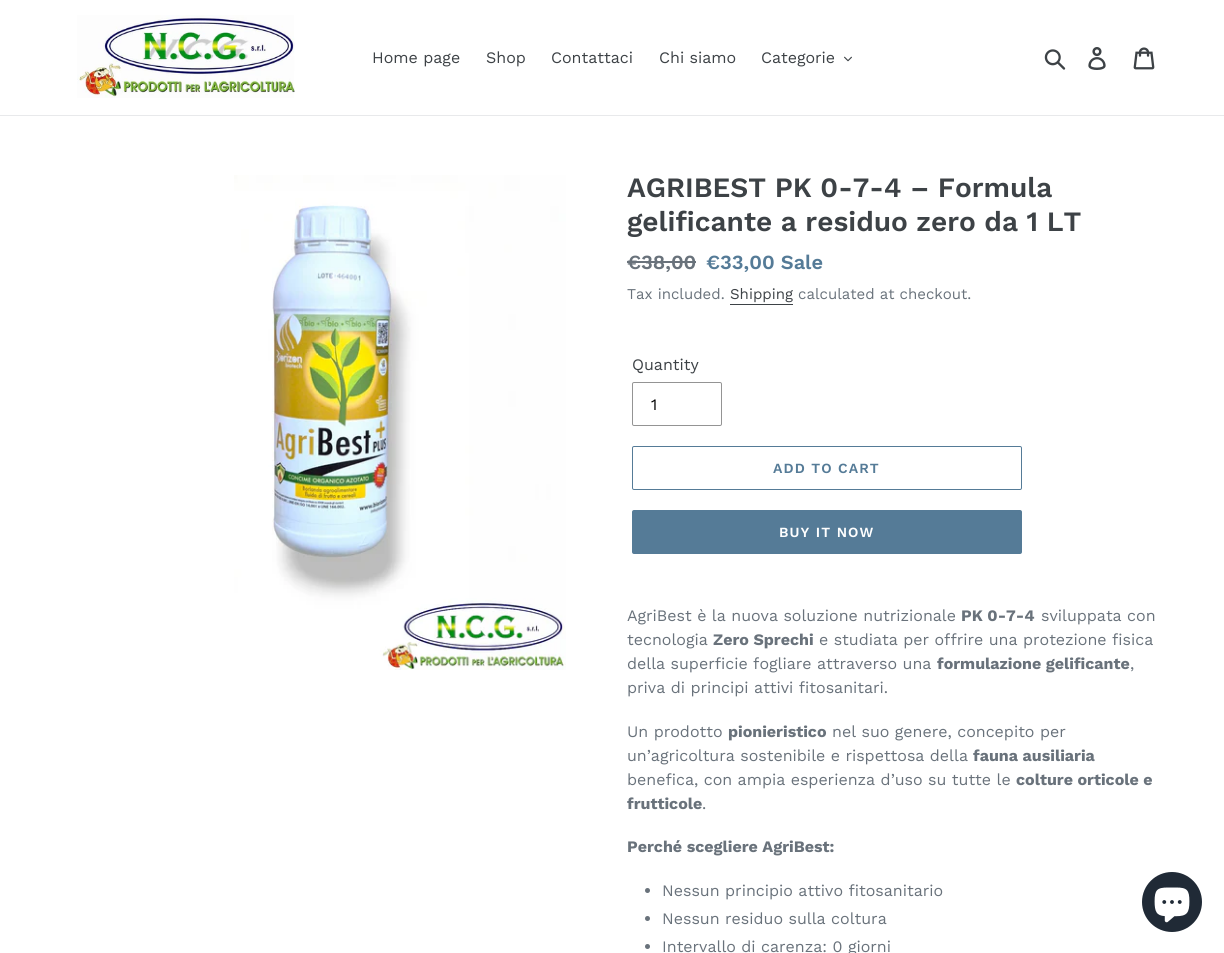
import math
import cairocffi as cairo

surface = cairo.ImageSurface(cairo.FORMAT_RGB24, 1224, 953)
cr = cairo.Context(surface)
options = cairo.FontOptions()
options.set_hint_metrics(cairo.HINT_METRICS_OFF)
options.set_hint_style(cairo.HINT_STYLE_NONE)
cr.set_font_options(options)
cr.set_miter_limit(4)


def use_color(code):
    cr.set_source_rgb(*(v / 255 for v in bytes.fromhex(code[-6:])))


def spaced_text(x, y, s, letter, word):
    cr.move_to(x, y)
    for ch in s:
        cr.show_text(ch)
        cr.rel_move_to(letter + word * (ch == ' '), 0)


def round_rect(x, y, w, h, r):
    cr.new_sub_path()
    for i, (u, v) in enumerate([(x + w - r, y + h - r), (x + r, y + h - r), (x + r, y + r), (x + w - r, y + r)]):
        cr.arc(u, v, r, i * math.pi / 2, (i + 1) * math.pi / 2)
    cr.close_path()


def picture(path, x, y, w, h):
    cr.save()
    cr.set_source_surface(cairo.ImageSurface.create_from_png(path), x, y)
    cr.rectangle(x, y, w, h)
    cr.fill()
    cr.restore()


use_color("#ffffff")
cr.paint()
use_color("#e8e9eb")
cr.rectangle(0, 115, 1224, 1)
cr.fill()
picture("img1.png", 77, 15, 218, 83)
cr.select_font_face("Work Sans")
cr.set_font_size(16)
use_color("#3d4246")
cr.move_to(372, 63)
cr.show_text("Home page")
cr.move_to(486, 63)
cr.show_text("Shop")
cr.move_to(551, 63)
cr.show_text("Contattaci")
cr.move_to(659, 63)
cr.show_text("Chi siamo")
cr.move_to(761, 63)
cr.show_text("Categorie")
picture("img2.png", 844, 56, 8, 6)
picture("img3.png", 1044, 49, 22, 21)
picture("img4.png", 1088, 47, 18, 23)
picture("img5.png", 1133, 47, 22, 23)
picture("img6.png", 234, 175, 332, 495)
cr.select_font_face("Work Sans SemiBold")
cr.set_font_size(28)
cr.move_to(627, 197)
cr.show_text("AGRIBEST PK 0-7-4 – Formula")
cr.move_to(627, 231)
cr.show_text("gelificante a residuo zero da 1 LT")
cr.set_font_size(20)
use_color("#69727b")
cr.move_to(627, 269)
cr.show_text("€38,00")
cr.rectangle(627, 261, 69, 2)
cr.fill()
use_color("#557b97")
cr.move_to(706, 269)
cr.show_text("€33,00 Sale")
cr.select_font_face("Work Sans")
cr.set_font_size(15)
use_color("#69727b")
cr.move_to(627, 299)
cr.show_text("Tax included.")
use_color("#3d4246")
cr.move_to(730, 299)
cr.show_text("Shipping")
cr.rectangle(730, 304, 63, 1)
cr.fill()
use_color("#69727b")
cr.move_to(798, 299)
cr.show_text("calculated at checkout.")
cr.set_font_size(16)
use_color("#3d4246")
cr.move_to(632, 370)
cr.show_text("Quantity")
round_rect(632.5, 382.5, 89, 43, 1.5)
use_color("#949494")
cr.set_line_width(1)
cr.stroke()
use_color("#000000")
cr.move_to(651, 410)
cr.show_text("1")
round_rect(632.5, 446.5, 389, 43, 1.5)
use_color("#557b97")
cr.stroke()
cr.select_font_face("Work Sans SemiBold")
cr.set_font_size(14)
spaced_text(773, 473, "ADD TO CART", 1.1, 0)
round_rect(632, 510, 390, 44, 2)
cr.fill()
use_color("#ffffff")
spaced_text(779, 537, "BUY IT NOW", 1.1, 0)
cr.select_font_face("Work Sans")
cr.set_font_size(16)
use_color("#69727b")
cr.move_to(627, 621)
cr.show_text("AgriBest è la nuova soluzione nutrizionale")
cr.select_font_face("Work Sans", cairo.FONT_SLANT_NORMAL, cairo.FONT_WEIGHT_BOLD)
cr.move_to(961, 621)
cr.show_text("PK 0-7-4")
cr.select_font_face("Work Sans")
cr.move_to(1041, 621)
cr.show_text("sviluppata con")
cr.move_to(627, 645)
cr.show_text("tecnologia")
cr.select_font_face("Work Sans", cairo.FONT_SLANT_NORMAL, cairo.FONT_WEIGHT_BOLD)
cr.move_to(713, 645)
cr.show_text("Zero Sprechi")
cr.select_font_face("Work Sans")
cr.move_to(819, 645)
cr.show_text("e studiata per offrire una protezione fisica")
cr.move_to(627, 669)
cr.show_text("della superficie fogliare attraverso una")
cr.select_font_face("Work Sans", cairo.FONT_SLANT_NORMAL, cairo.FONT_WEIGHT_BOLD)
cr.move_to(937, 669)
cr.show_text("formulazione gelificante")
cr.select_font_face("Work Sans")
cr.move_to(1130, 669)
cr.show_text(",")
cr.move_to(627, 693)
cr.show_text("priva di principi attivi fitosanitari.")
cr.move_to(627, 737)
cr.show_text("Un prodotto")
cr.select_font_face("Work Sans", cairo.FONT_SLANT_NORMAL, cairo.FONT_WEIGHT_BOLD)
cr.move_to(728, 737)
cr.show_text("pionieristico")
cr.select_font_face("Work Sans")
cr.move_to(832, 737)
cr.show_text("nel suo genere, concepito per")
cr.move_to(627, 761)
cr.show_text("un’agricoltura sostenibile e rispettosa della")
cr.select_font_face("Work Sans", cairo.FONT_SLANT_NORMAL, cairo.FONT_WEIGHT_BOLD)
cr.move_to(973, 761)
cr.show_text("fauna ausiliaria")
cr.select_font_face("Work Sans")
cr.move_to(627, 785)
cr.show_text("benefica, con ampia esperienza d’uso su tutte le")
cr.select_font_face("Work Sans", cairo.FONT_SLANT_NORMAL, cairo.FONT_WEIGHT_BOLD)
cr.move_to(1016, 785)
cr.show_text("colture orticole e")
cr.move_to(627, 809)
cr.show_text("frutticole")
cr.select_font_face("Work Sans")
cr.move_to(702, 809)
cr.show_text(".")
cr.select_font_face("Work Sans", cairo.FONT_SLANT_NORMAL, cairo.FONT_WEIGHT_BOLD)
cr.move_to(627, 852)
cr.show_text("Perché scegliere AgriBest:")
cr.new_path()
cr.arc(647.5, 890.5, 2.5, 0, 2 * math.pi)
cr.fill()
cr.select_font_face("Work Sans")
cr.move_to(662, 896)
cr.show_text("Nessun principio attivo fitosanitario")
cr.new_path()
cr.arc(647.5, 918.5, 2.5, 0, 2 * math.pi)
cr.fill()
cr.move_to(662, 924)
cr.show_text("Nessun residuo sulla coltura")
cr.new_path()
cr.arc(647.5, 946.5, 2.5, 0, 2 * math.pi)
cr.fill()
cr.move_to(662, 952)
cr.show_text("Intervallo di carenza: 0 giorni")
use_color("#202a36")
cr.new_path()
cr.arc(1172, 902, 30, 0, 2 * math.pi)
cr.fill()
picture("img7.png", 1154, 887, 36, 36)
surface.write_to_png("result.png")
